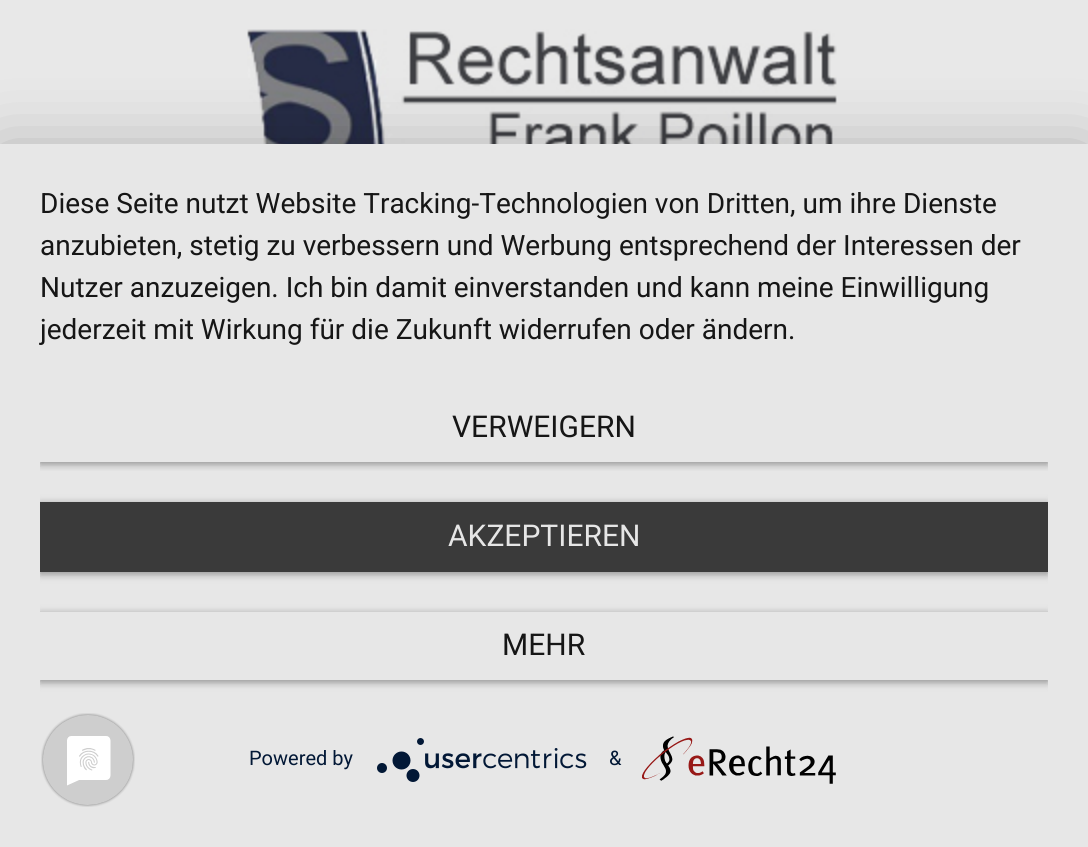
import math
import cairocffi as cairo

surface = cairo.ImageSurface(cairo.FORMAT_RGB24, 1088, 847)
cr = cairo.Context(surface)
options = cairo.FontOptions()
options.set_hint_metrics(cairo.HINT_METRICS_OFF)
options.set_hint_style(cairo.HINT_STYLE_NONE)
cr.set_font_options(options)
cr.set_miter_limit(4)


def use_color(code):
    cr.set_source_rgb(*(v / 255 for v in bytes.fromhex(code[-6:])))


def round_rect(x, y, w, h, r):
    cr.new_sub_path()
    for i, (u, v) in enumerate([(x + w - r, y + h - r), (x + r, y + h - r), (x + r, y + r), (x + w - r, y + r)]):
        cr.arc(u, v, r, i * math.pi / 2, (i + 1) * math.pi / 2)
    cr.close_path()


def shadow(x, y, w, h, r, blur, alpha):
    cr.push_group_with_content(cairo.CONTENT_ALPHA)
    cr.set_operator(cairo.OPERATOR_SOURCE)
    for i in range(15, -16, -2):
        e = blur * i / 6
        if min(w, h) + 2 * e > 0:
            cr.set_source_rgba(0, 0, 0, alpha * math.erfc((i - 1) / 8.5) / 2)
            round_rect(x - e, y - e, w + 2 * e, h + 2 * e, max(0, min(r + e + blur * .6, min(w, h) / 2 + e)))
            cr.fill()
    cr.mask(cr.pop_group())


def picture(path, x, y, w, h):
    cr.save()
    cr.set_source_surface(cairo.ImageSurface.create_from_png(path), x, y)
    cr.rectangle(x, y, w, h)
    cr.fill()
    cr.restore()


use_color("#e8e8e8")
cr.paint()
picture("img1.png", 247, 29, 590, 115)
use_color("#000000")
shadow(0, 156, 1088, 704, 0, 36, 0.3)
use_color("#e7e7e7")
cr.rectangle(0, 144, 1088, 703)
cr.fill()
cr.select_font_face("Roboto")
cr.set_font_size(28)
use_color("#161616")
cr.move_to(40, 213)
cr.show_text("Diese Seite nutzt Website Tracking-Technologien von Dritten, um ihre Dienste")
cr.move_to(40, 255)
cr.show_text("anzubieten, stetig zu verbessern und Werbung entsprechend der Interessen der")
cr.move_to(40, 297)
cr.show_text("Nutzer anzuzeigen. Ich bin damit einverstanden und kann meine Einwilligung")
cr.move_to(40, 339)
cr.show_text("jederzeit mit Wirkung für die Zukunft widerrufen oder ändern.")
cr.save()
cr.rectangle(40, 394, 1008, 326)
cr.clip()
cr.rectangle(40, 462, 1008, 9)
cr.clip()
use_color("#000000")
shadow(40, 396, 1008, 68, 0, 4, 0.4)
cr.restore()
cr.set_font_size(30)
cr.move_to(452, 437)
cr.show_text("VERWEIGERN")
cr.save()
cr.rectangle(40, 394, 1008, 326)
cr.clip()
use_color("#000000")
shadow(40, 504, 1008, 70, 0, 4, 0.4)
cr.restore()
use_color("#3a3a3a")
cr.rectangle(40, 502, 1008, 70)
cr.fill()
use_color("#e6e6e6")
cr.move_to(448, 546)
cr.show_text("AKZEPTIEREN")
cr.save()
cr.rectangle(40, 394, 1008, 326)
cr.clip()
cr.set_fill_rule(cairo.FILL_RULE_EVEN_ODD)
cr.new_path()
cr.move_to(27, 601)
cr.line_to(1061, 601)
cr.line_to(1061, 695)
cr.line_to(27, 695)
cr.close_path()
cr.move_to(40, 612)
cr.line_to(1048, 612)
cr.line_to(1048, 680)
cr.line_to(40, 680)
cr.close_path()
cr.clip()
use_color("#000000")
shadow(40, 614, 1008, 68, 0, 4, 0.4)
cr.restore()
use_color("#161616")
cr.move_to(502, 655)
cr.show_text("MEHR")
cr.set_font_size(20)
use_color("#021836")
cr.move_to(249, 765)
cr.show_text("Powered by")
picture("img2.png", 377, 738, 210, 44)
cr.move_to(609, 765)
cr.show_text("&")
picture("img3.png", 642, 736, 194, 48)
picture("img4.png", 41, 713, 94, 94)
surface.write_to_png("result.png")
